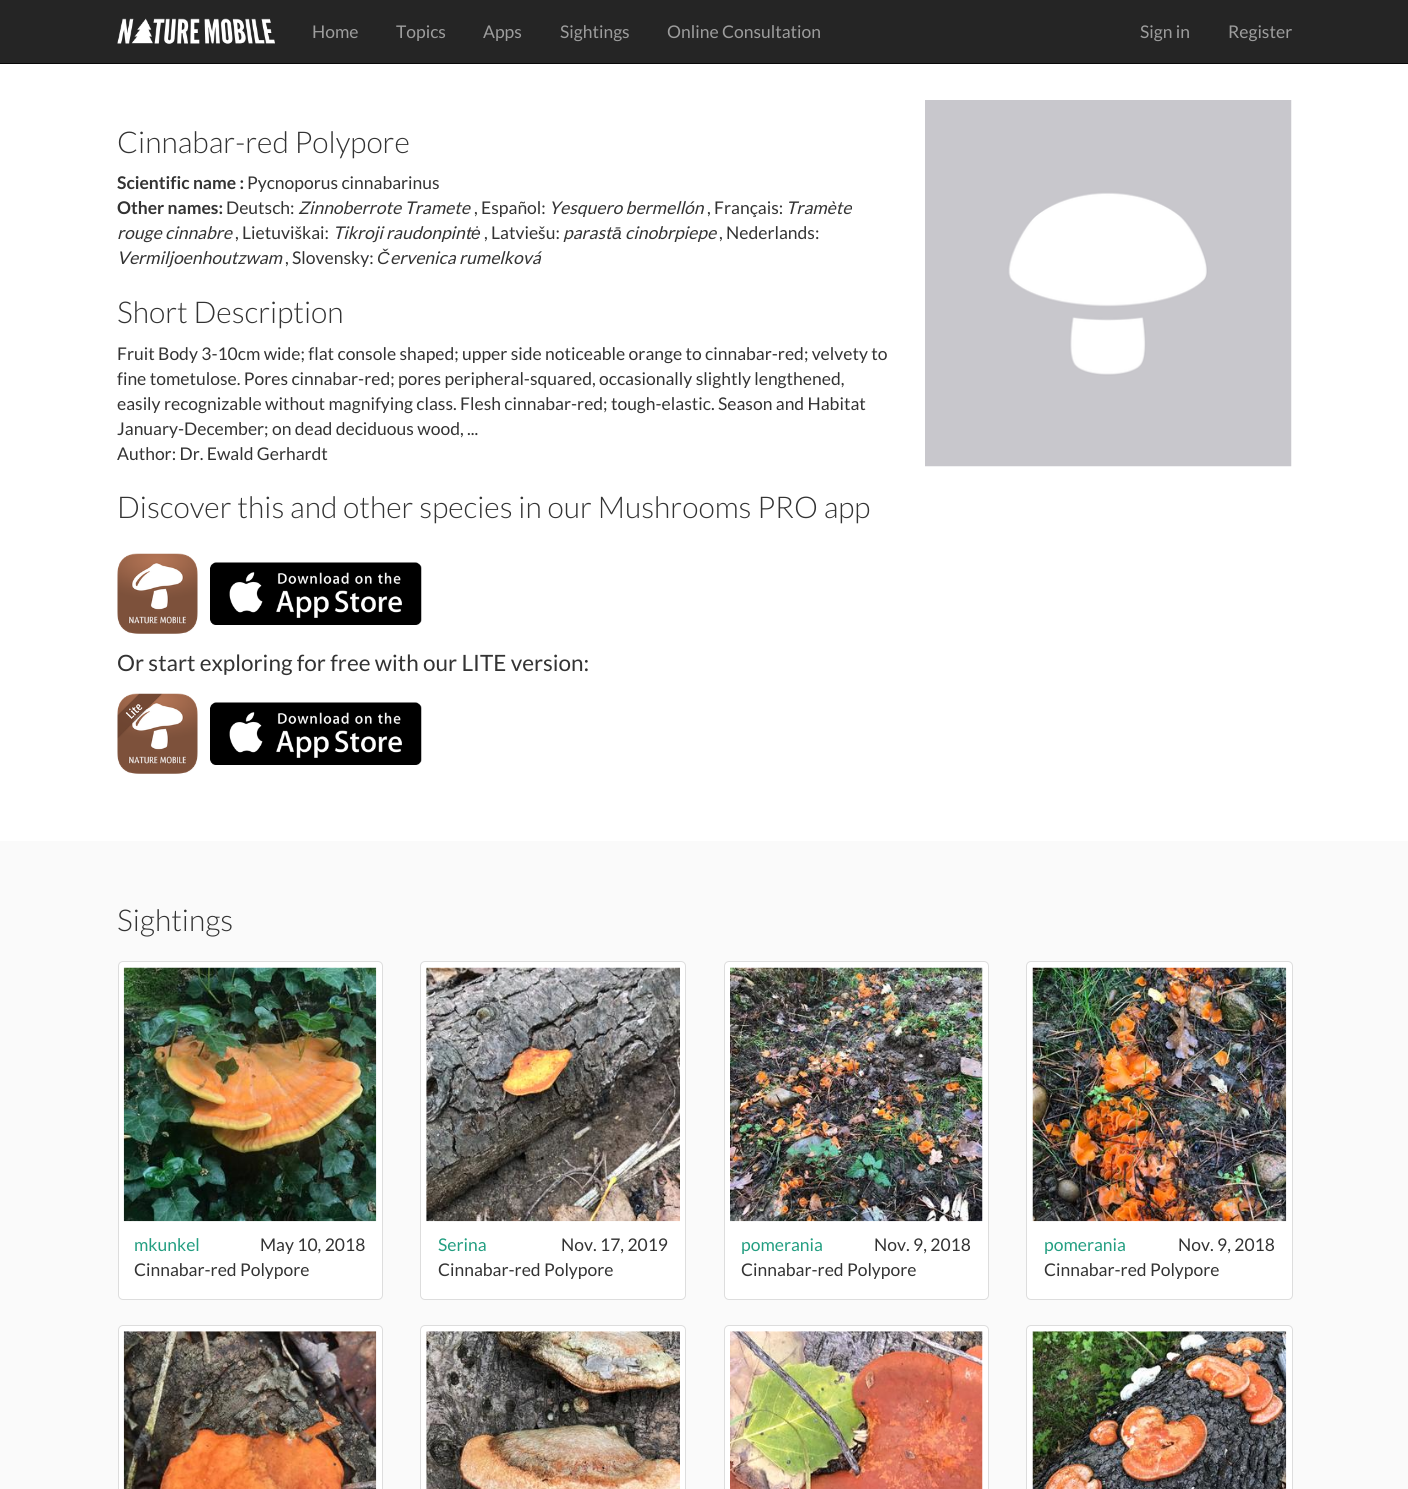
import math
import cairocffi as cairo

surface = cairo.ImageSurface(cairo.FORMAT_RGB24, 1408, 1489)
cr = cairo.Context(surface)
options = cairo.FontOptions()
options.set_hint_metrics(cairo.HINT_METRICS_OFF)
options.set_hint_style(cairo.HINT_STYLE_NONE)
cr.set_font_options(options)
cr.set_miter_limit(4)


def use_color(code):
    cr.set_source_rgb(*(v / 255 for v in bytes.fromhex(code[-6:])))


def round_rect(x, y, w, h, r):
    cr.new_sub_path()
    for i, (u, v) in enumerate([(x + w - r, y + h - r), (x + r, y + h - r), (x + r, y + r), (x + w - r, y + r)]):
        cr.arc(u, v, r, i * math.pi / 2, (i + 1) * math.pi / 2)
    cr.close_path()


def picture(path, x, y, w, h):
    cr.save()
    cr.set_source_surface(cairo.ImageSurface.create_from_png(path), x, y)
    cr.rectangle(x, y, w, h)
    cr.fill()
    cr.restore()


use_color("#ffffff")
cr.paint()
use_color("#252525")
cr.rectangle(0, 0, 1408, 63)
cr.fill()
use_color("#080808")
cr.rectangle(0, 63, 1408, 1)
cr.fill()
picture("img1.png", 117, 18, 158, 26)
cr.select_font_face("Lato")
cr.set_font_size(17.5)
use_color("#9d9d9d")
cr.move_to(312, 38)
cr.show_text("Home")
cr.move_to(396, 38)
cr.show_text("Topics")
cr.move_to(483, 38)
cr.show_text("Apps")
cr.move_to(560, 38)
cr.show_text("Sightings")
cr.move_to(667, 38)
cr.show_text("Online Consultation")
cr.move_to(1140, 38)
cr.show_text("Sign in")
cr.move_to(1228, 38)
cr.show_text("Register")
cr.select_font_face("Lato Light")
cr.set_font_size(30)
use_color("#333333")
cr.move_to(117, 153)
cr.show_text("Cinnabar-red Polypore")
cr.select_font_face("Lato", cairo.FONT_SLANT_NORMAL, cairo.FONT_WEIGHT_BOLD)
cr.set_font_size(17.5)
cr.move_to(117, 189)
cr.show_text("Scientific name :")
cr.select_font_face("Lato")
cr.move_to(247, 189)
cr.show_text("Pycnoporus cinnabarinus")
cr.select_font_face("Lato", cairo.FONT_SLANT_NORMAL, cairo.FONT_WEIGHT_BOLD)
cr.move_to(117, 214)
cr.show_text("Other names:")
cr.select_font_face("Lato")
cr.move_to(226, 214)
cr.show_text("Deutsch:")
cr.select_font_face("Lato", cairo.FONT_SLANT_ITALIC)
cr.move_to(298, 214)
cr.show_text("Zinnoberrote Tramete")
cr.select_font_face("Lato")
cr.move_to(474, 214)
cr.show_text(", Español:")
cr.select_font_face("Lato", cairo.FONT_SLANT_ITALIC)
cr.move_to(549, 214)
cr.show_text("Yesquero bermellón")
cr.select_font_face("Lato")
cr.move_to(707, 214)
cr.show_text(", Français:")
cr.select_font_face("Lato", cairo.FONT_SLANT_ITALIC)
cr.move_to(786, 214)
cr.show_text("Tramète")
cr.move_to(117, 239)
cr.show_text("rouge cinnabre")
cr.select_font_face("Lato")
cr.move_to(235, 239)
cr.show_text(", Lietuviškai:")
cr.select_font_face("Lato", cairo.FONT_SLANT_ITALIC)
cr.move_to(333, 239)
cr.show_text("Tikroji raudonpint")
cr.select_font_face("Liberation Sans", cairo.FONT_SLANT_ITALIC)
cr.move_to(471, 239)
cr.show_text("ė")
cr.select_font_face("Lato")
cr.move_to(484, 239)
cr.show_text(", Latviešu:")
cr.select_font_face("Lato", cairo.FONT_SLANT_ITALIC)
cr.move_to(563, 239)
cr.show_text("parast")
cr.select_font_face("Liberation Sans", cairo.FONT_SLANT_ITALIC)
cr.move_to(612, 239)
cr.show_text("ā")
cr.select_font_face("Lato", cairo.FONT_SLANT_ITALIC)
cr.move_to(625, 239)
cr.show_text("cinobrpiepe")
cr.select_font_face("Lato")
cr.move_to(719, 239)
cr.show_text(", Nederlands:")
cr.select_font_face("Lato", cairo.FONT_SLANT_ITALIC)
cr.move_to(117, 264)
cr.show_text("Vermiljoenhoutzwam")
cr.select_font_face("Lato")
cr.move_to(285, 264)
cr.show_text(", Slovensky:")
cr.select_font_face("Liberation Sans", cairo.FONT_SLANT_ITALIC)
cr.move_to(377, 264)
cr.show_text("Č")
cr.select_font_face("Lato", cairo.FONT_SLANT_ITALIC)
cr.move_to(390, 264)
cr.show_text("ervenica rumelková")
cr.select_font_face("Lato Light")
cr.set_font_size(30)
cr.move_to(117, 323)
cr.show_text("Short Description")
cr.select_font_face("Lato")
cr.set_font_size(17.5)
cr.move_to(117, 360)
cr.show_text("Fruit Body 3-10cm wide; flat console shaped; upper side noticeable orange to cinnabar-red; velvety to")
cr.move_to(117, 385)
cr.show_text("fine tometulose. Pores cinnabar-red; pores peripheral-squared, occasionally slightly lengthened,")
cr.move_to(117, 410)
cr.show_text("easily recognizable without magnifying class. Flesh cinnabar-red; tough-elastic. Season and Habitat")
cr.move_to(117, 435)
cr.show_text("January-December; on dead deciduous wood, ...")
cr.move_to(117, 460)
cr.show_text("Author: Dr. Ewald Gerhardt")
cr.select_font_face("Lato Light")
cr.set_font_size(30)
cr.move_to(117, 518)
cr.show_text("Discover this and other species in our Mushrooms PRO app")
picture("img2.png", 117, 553, 81, 81)
picture("img3.png", 210, 562, 212, 63)
cr.select_font_face("Lato")
cr.set_font_size(22.5)
cr.move_to(117, 671)
cr.show_text("Or start exploring for free with our LITE version:")
picture("img4.png", 117, 693, 81, 81)
picture("img5.png", 210, 702, 212, 63)
picture("img6.png", 925, 100, 367, 367)
use_color("#fafafa")
cr.rectangle(0, 841, 1408, 648)
cr.fill()
cr.select_font_face("Lato Light")
cr.set_font_size(30)
use_color("#333333")
cr.move_to(117, 931)
cr.show_text("Sightings")
use_color("#ffffff")
round_rect(118.5, 961.5, 264, 338, 4.5)
cr.fill_preserve()
use_color("#dddddd")
cr.set_line_width(1)
cr.stroke()
picture("img7.png", 123, 967, 254, 255)
cr.select_font_face("Lato")
cr.set_font_size(17.5)
use_color("#239e81")
cr.move_to(134, 1251)
cr.show_text("mkunkel")
use_color("#333333")
cr.move_to(260, 1251)
cr.show_text("May 10, 2018")
cr.move_to(134, 1276)
cr.show_text("Cinnabar-red Polypore")
use_color("#ffffff")
round_rect(420.5, 961.5, 265, 338, 4.5)
cr.fill_preserve()
use_color("#dddddd")
cr.stroke()
picture("img8.png", 426, 967, 254, 255)
use_color("#239e81")
cr.move_to(438, 1251)
cr.show_text("Serina")
use_color("#333333")
cr.move_to(561, 1251)
cr.show_text("Nov. 17, 2019")
cr.move_to(438, 1276)
cr.show_text("Cinnabar-red Polypore")
use_color("#ffffff")
round_rect(724.5, 961.5, 264, 338, 4.5)
cr.fill_preserve()
use_color("#dddddd")
cr.stroke()
picture("img9.png", 730, 967, 253, 255)
use_color("#239e81")
cr.move_to(741, 1251)
cr.show_text("pomerania")
use_color("#333333")
cr.move_to(874, 1251)
cr.show_text("Nov. 9, 2018")
cr.move_to(741, 1276)
cr.show_text("Cinnabar-red Polypore")
use_color("#ffffff")
round_rect(1026.5, 961.5, 266, 338, 4.5)
cr.fill_preserve()
use_color("#dddddd")
cr.stroke()
picture("img10.png", 1032, 967, 255, 255)
use_color("#239e81")
cr.move_to(1044, 1251)
cr.show_text("pomerania")
use_color("#333333")
cr.move_to(1178, 1251)
cr.show_text("Nov. 9, 2018")
cr.move_to(1044, 1276)
cr.show_text("Cinnabar-red Polypore")
use_color("#ffffff")
round_rect(118.5, 1325.5, 264, 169, 4.5)
cr.fill_preserve()
use_color("#dddddd")
cr.stroke()
picture("img11.png", 123, 1331, 254, 158)
use_color("#ffffff")
round_rect(420.5, 1325.5, 265, 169, 4.5)
cr.fill_preserve()
use_color("#dddddd")
cr.stroke()
picture("img12.png", 426, 1331, 254, 158)
use_color("#ffffff")
round_rect(724.5, 1325.5, 264, 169, 4.5)
cr.fill_preserve()
use_color("#dddddd")
cr.stroke()
picture("img13.png", 730, 1331, 253, 158)
use_color("#ffffff")
round_rect(1026.5, 1325.5, 266, 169, 4.5)
cr.fill_preserve()
use_color("#dddddd")
cr.stroke()
picture("img14.png", 1032, 1331, 255, 158)
surface.write_to_png("result.png")
